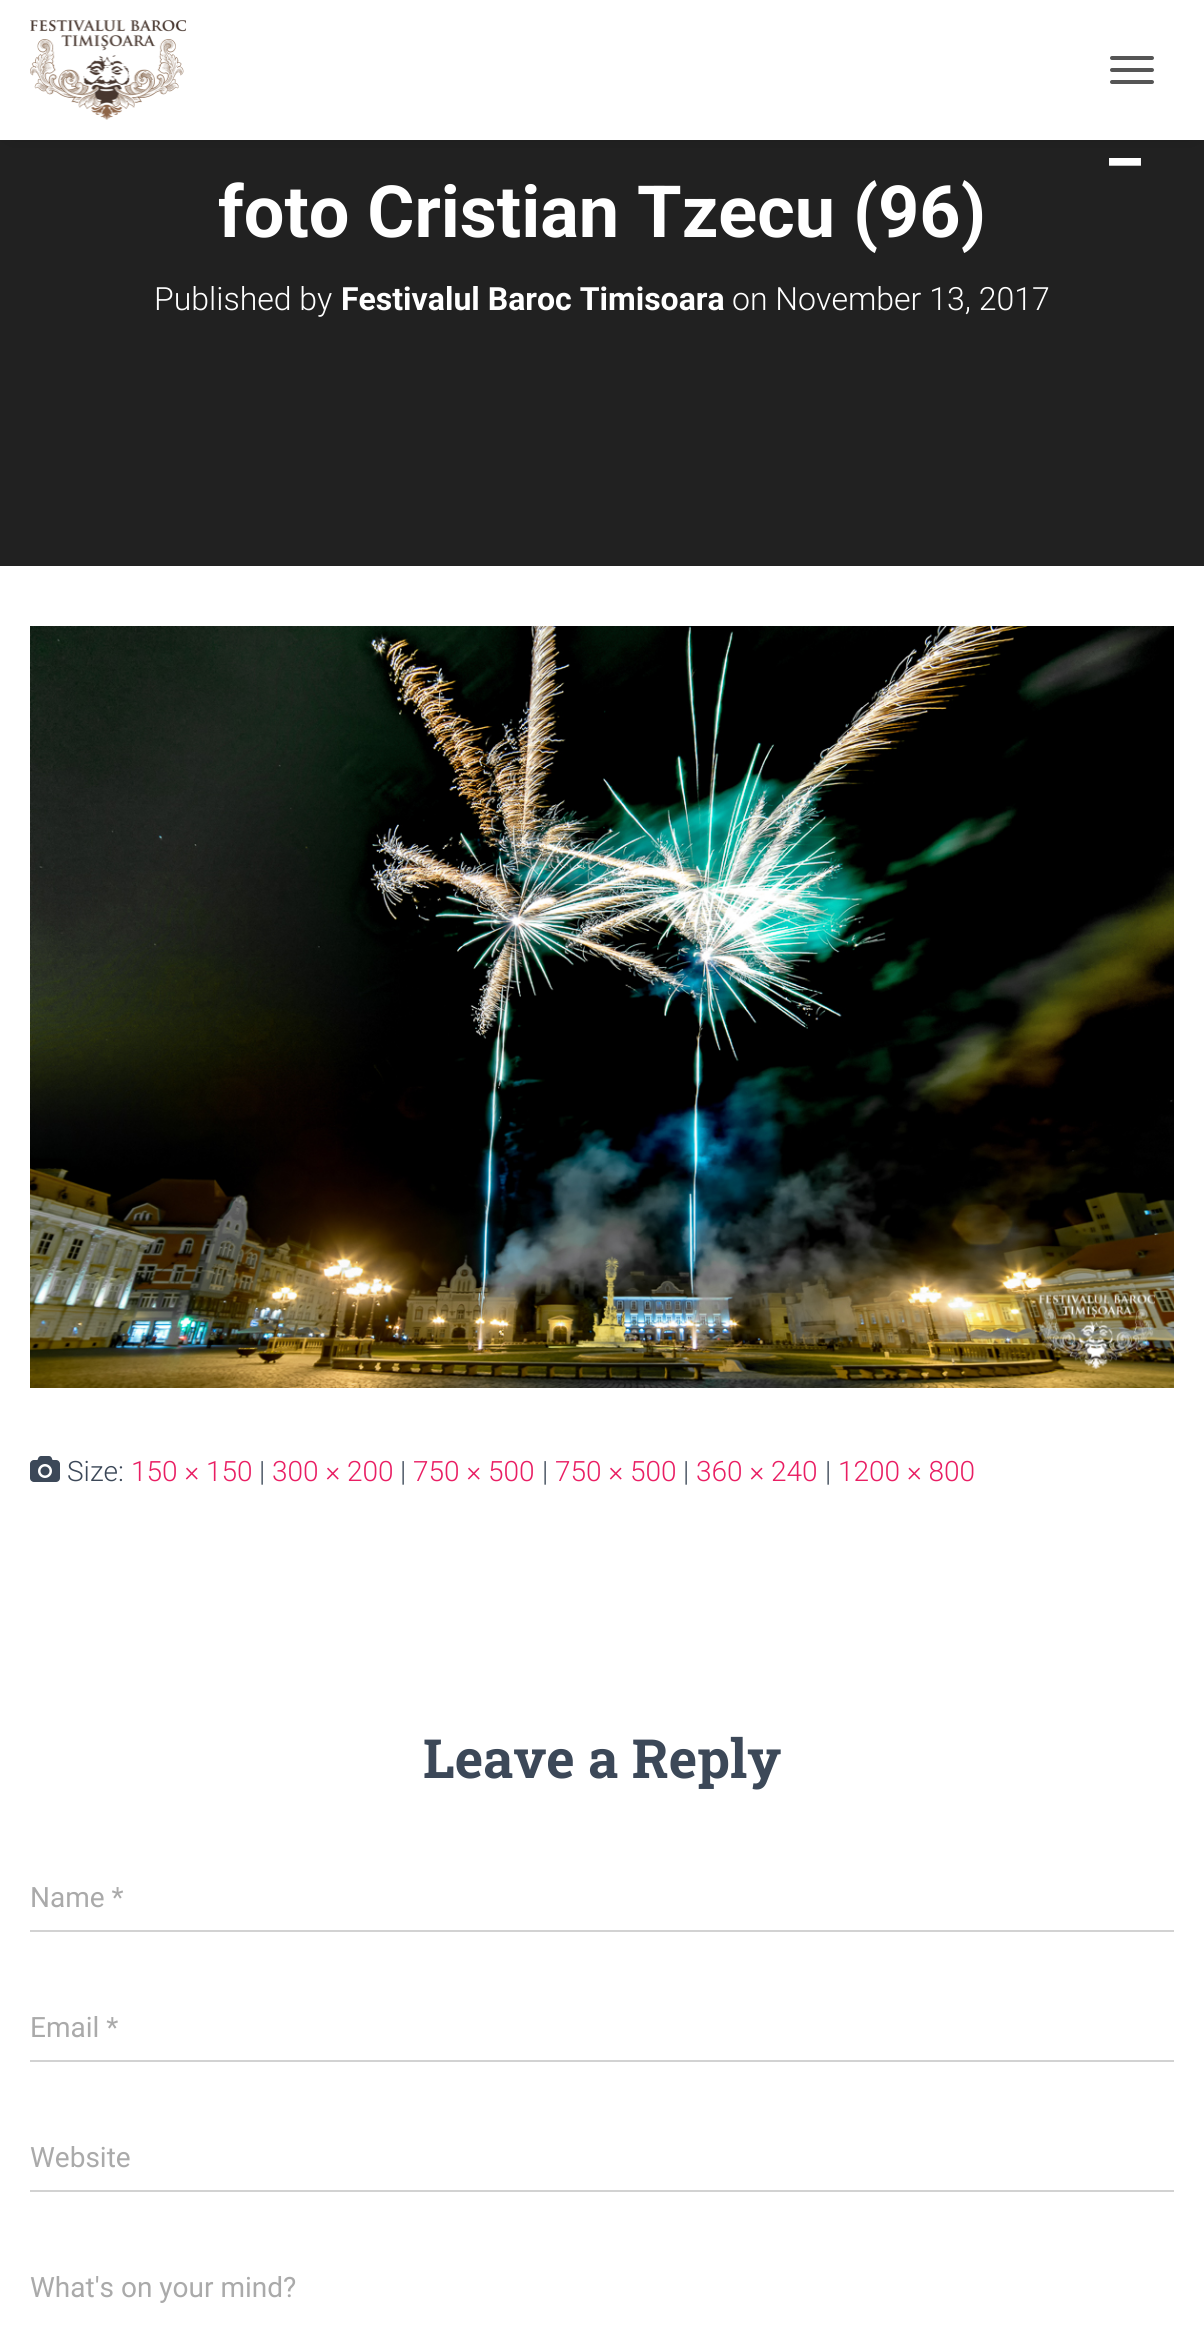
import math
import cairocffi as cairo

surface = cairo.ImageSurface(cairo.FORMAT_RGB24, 1204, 2338)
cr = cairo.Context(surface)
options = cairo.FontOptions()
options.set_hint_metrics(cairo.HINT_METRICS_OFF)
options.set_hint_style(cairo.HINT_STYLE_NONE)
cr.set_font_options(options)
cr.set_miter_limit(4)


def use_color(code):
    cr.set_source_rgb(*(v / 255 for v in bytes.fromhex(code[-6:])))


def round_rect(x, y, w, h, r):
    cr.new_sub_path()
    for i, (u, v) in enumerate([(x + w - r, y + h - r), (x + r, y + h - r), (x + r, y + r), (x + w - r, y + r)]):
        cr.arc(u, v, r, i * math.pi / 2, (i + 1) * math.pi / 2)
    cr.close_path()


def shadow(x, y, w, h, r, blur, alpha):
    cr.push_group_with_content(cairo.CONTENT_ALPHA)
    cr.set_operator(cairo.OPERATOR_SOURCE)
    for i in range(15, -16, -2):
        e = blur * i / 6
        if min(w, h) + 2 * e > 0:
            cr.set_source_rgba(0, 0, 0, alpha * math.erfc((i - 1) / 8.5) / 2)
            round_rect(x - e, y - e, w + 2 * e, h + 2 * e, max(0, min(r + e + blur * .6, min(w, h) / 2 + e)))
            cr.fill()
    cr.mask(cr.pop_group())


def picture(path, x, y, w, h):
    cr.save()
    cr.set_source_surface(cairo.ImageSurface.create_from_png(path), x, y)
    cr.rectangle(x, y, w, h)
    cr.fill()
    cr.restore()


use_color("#212121")
cr.paint()
use_color("#000000")
shadow(12, 14, 1180, 116, 0, 10, 0.42)
use_color("#ffffff")
cr.rectangle(0, 0, 1204, 140)
cr.fill()
picture("img1.png", 30, 20, 156, 100)
use_color("#555555")
round_rect(1110, 56, 44, 4, 2)
cr.fill()
round_rect(1110, 68, 44, 4, 2)
cr.fill()
round_rect(1110, 80, 44, 4, 2)
cr.fill()
cr.select_font_face("Roboto", cairo.FONT_SLANT_NORMAL, cairo.FONT_WEIGHT_BOLD)
cr.set_font_size(72)
use_color("#ffffff")
cr.move_to(1109, 158)
cr.show_text("_")
cr.move_to(218, 237)
cr.show_text("foto Cristian Tzecu (96)")
cr.select_font_face("Roboto Light")
cr.set_font_size(32)
cr.move_to(154, 310)
cr.show_text("Published by")
cr.select_font_face("Roboto", cairo.FONT_SLANT_NORMAL, cairo.FONT_WEIGHT_BOLD)
cr.move_to(341, 310)
cr.show_text("Festivalul Baroc Timisoara")
cr.select_font_face("Roboto Light")
cr.move_to(732, 310)
cr.show_text("on November 13, 2017")
cr.rectangle(0, 566, 1204, 1772)
cr.fill()
picture("img2.png", 30, 626, 1144, 762)
picture("img3.png", 30, 1456, 30, 26)
cr.set_font_size(28)
use_color("#3c4858")
cr.move_to(67, 1481)
cr.show_text("Size:")
use_color("#e91e63")
cr.move_to(131, 1481)
cr.show_text("150 × 150")
use_color("#3c4858")
cr.move_to(259, 1481)
cr.show_text("|")
use_color("#e91e63")
cr.move_to(272, 1481)
cr.show_text("300 × 200")
use_color("#3c4858")
cr.move_to(400, 1481)
cr.show_text("|")
use_color("#e91e63")
cr.move_to(413, 1481)
cr.show_text("750 × 500")
use_color("#3c4858")
cr.move_to(542, 1481)
cr.show_text("|")
use_color("#e91e63")
cr.move_to(555, 1481)
cr.show_text("750 × 500")
use_color("#3c4858")
cr.move_to(683, 1481)
cr.show_text("|")
use_color("#e91e63")
cr.move_to(696, 1481)
cr.show_text("360 × 240")
use_color("#3c4858")
cr.move_to(825, 1481)
cr.show_text("|")
use_color("#e91e63")
cr.move_to(838, 1481)
cr.show_text("1200 × 800")
cr.select_font_face("Roboto Slab", cairo.FONT_SLANT_NORMAL, cairo.FONT_WEIGHT_BOLD)
cr.set_font_size(54)
use_color("#3c4858")
cr.move_to(423, 1778)
cr.show_text("Leave a Reply")
cr.select_font_face("Roboto")
cr.set_font_size(28)
use_color("#aaaaaa")
cr.move_to(30, 1907)
cr.show_text("Name *")
use_color("#d2d2d2")
cr.rectangle(30, 1930, 1144, 2)
cr.fill()
use_color("#aaaaaa")
cr.move_to(30, 2037)
cr.show_text("Email *")
use_color("#d2d2d2")
cr.rectangle(30, 2060, 1144, 2)
cr.fill()
use_color("#aaaaaa")
cr.move_to(30, 2167)
cr.show_text("Website")
use_color("#d2d2d2")
cr.rectangle(30, 2190, 1144, 2)
cr.fill()
use_color("#aaaaaa")
cr.move_to(30, 2297)
cr.show_text("What's on your mind?")
surface.write_to_png("result.png")
